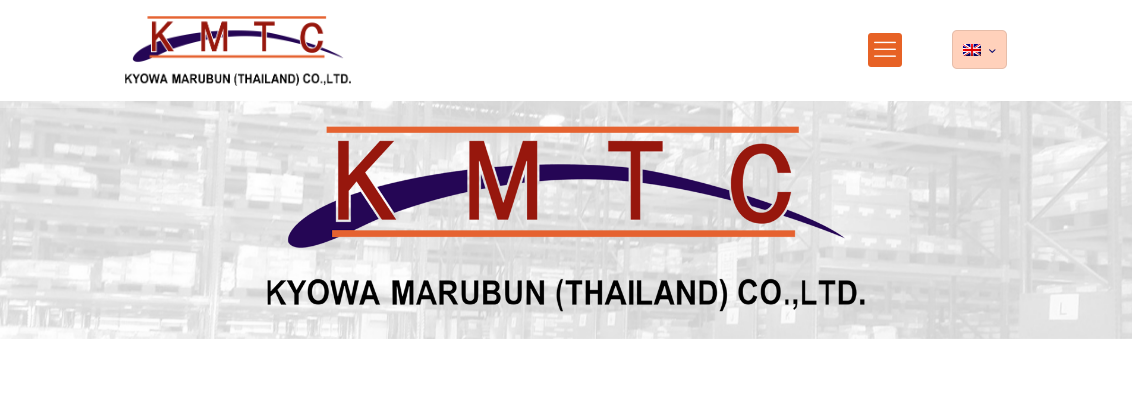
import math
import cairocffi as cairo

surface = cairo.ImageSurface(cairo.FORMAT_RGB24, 1132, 399)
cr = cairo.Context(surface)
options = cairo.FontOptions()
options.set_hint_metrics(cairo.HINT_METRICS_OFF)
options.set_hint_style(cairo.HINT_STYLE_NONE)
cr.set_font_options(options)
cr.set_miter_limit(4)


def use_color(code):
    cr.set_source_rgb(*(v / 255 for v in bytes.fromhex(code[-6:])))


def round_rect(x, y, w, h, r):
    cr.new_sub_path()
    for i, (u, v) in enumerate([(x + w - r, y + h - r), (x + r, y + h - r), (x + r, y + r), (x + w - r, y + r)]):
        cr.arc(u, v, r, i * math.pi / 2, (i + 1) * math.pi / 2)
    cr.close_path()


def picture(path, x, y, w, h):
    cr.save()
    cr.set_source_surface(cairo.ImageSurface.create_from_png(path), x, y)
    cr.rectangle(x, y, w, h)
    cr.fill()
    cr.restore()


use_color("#ffffff")
cr.paint()
picture("img1.png", 125, 16, 226, 70)
use_color("#e76225")
round_rect(868, 33, 34, 34, 3)
cr.fill()
picture("img2.png", 874, 41, 22, 16)
use_color("#ffd1bb")
round_rect(952, 30, 55, 39, 5)
cr.fill()
round_rect(952.5, 30.5, 54, 38, 4.5)
cr.set_source_rgba(0, 0, 0, 0.1)
cr.set_line_width(1)
cr.stroke()
picture("img3.png", 963, 44, 18, 12)
picture("img4.png", 989, 49, 7, 4)
picture("img5.png", 0, 101, 1132, 238)
picture("img6.png", 267, 126, 598, 186)
cr.set_source_rgba(1, 1, 1, 0.25)
cr.rectangle(0, 101, 125, 7)
cr.fill()
surface.write_to_png("result.png")
